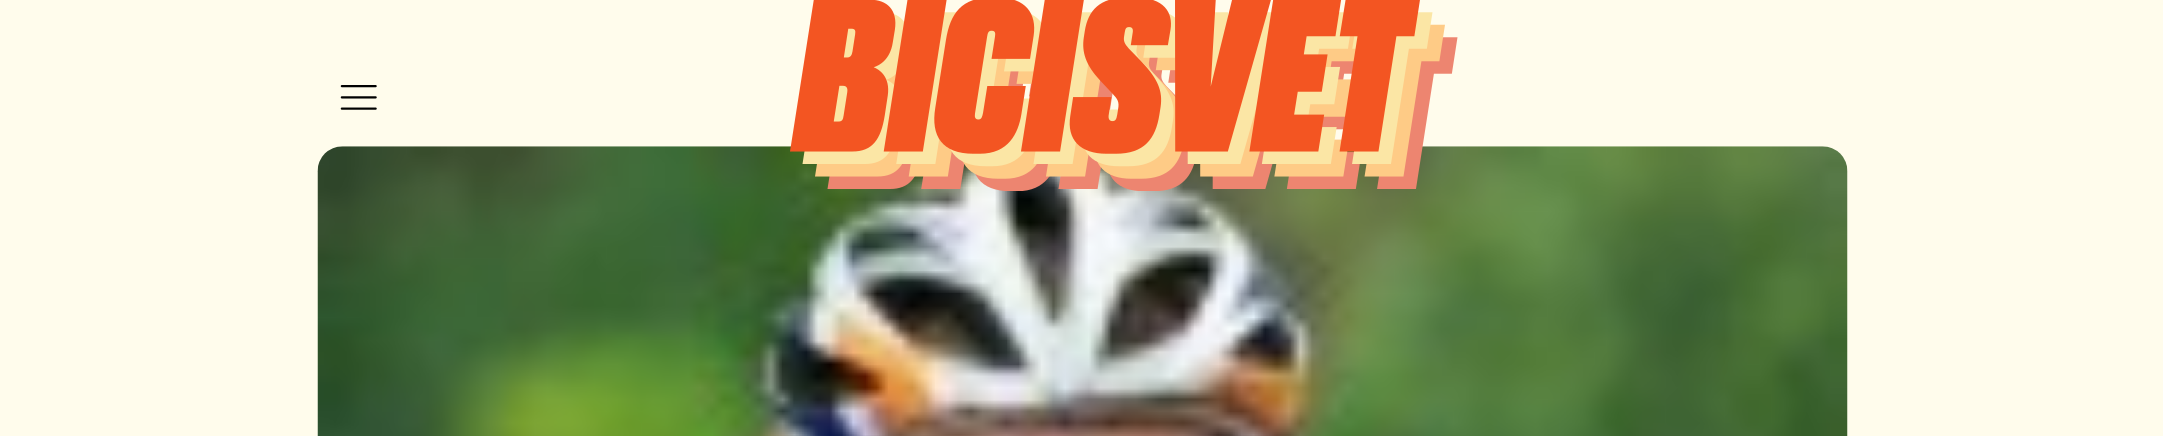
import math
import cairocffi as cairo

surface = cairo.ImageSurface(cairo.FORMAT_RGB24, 2163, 436)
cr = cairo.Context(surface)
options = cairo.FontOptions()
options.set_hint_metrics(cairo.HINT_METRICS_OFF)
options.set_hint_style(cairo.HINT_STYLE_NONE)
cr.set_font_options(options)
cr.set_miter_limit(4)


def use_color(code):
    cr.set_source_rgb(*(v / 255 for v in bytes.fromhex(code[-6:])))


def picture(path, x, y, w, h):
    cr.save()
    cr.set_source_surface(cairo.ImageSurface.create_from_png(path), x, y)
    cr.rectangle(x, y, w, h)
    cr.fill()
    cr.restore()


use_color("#fffcec")
cr.paint()
picture("img1.png", 340, 85, 37, 25)
picture("img3.png", 317, 146, 1531, 290)
picture("img2.png", 790, 0, 668, 191)
surface.write_to_png("result.png")
